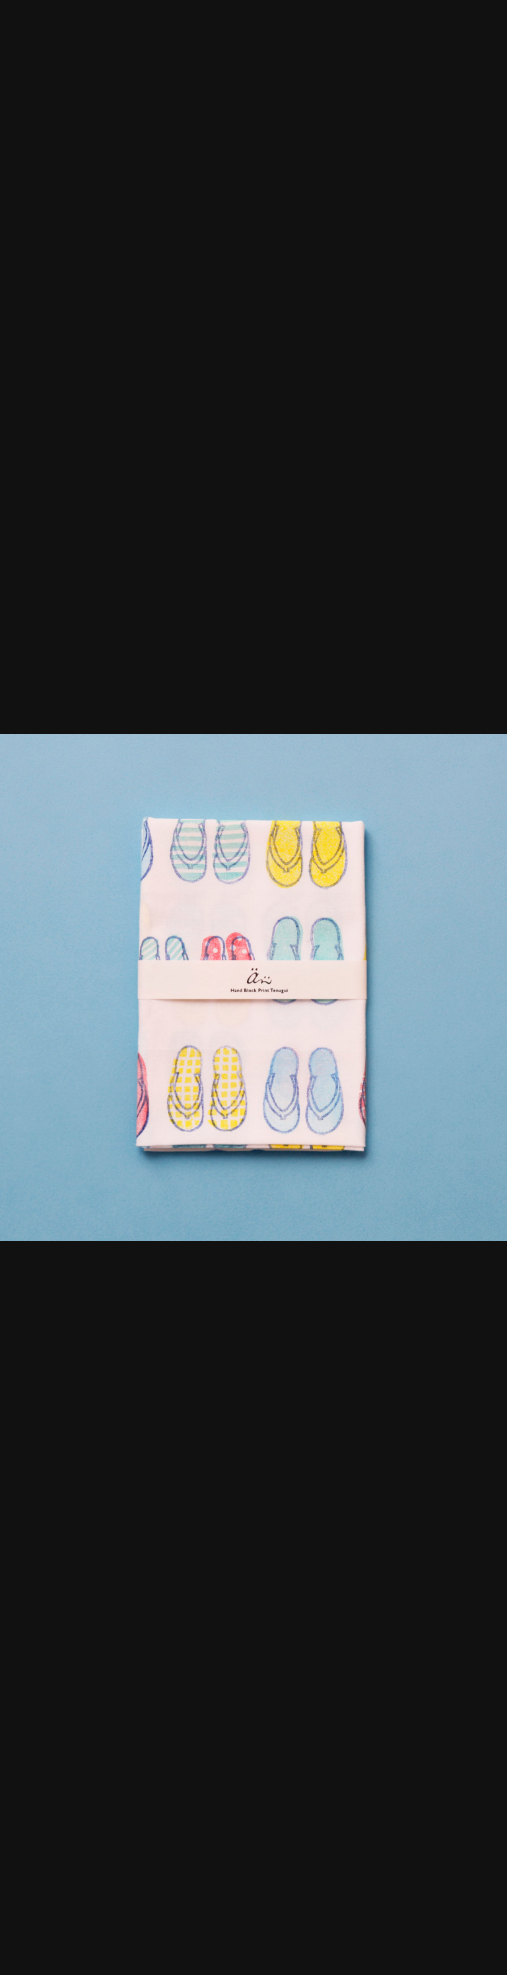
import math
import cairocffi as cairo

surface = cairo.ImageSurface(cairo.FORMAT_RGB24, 507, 1975)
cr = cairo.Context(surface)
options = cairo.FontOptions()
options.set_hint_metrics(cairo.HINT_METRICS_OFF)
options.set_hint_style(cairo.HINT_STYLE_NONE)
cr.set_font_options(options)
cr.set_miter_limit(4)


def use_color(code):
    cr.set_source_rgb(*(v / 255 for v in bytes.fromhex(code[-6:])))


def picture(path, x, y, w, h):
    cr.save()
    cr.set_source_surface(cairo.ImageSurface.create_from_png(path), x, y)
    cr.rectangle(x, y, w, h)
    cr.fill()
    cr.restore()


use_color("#111111")
cr.paint()
picture("img1.png", 0, 734, 507, 507)
surface.write_to_png("result.png")
